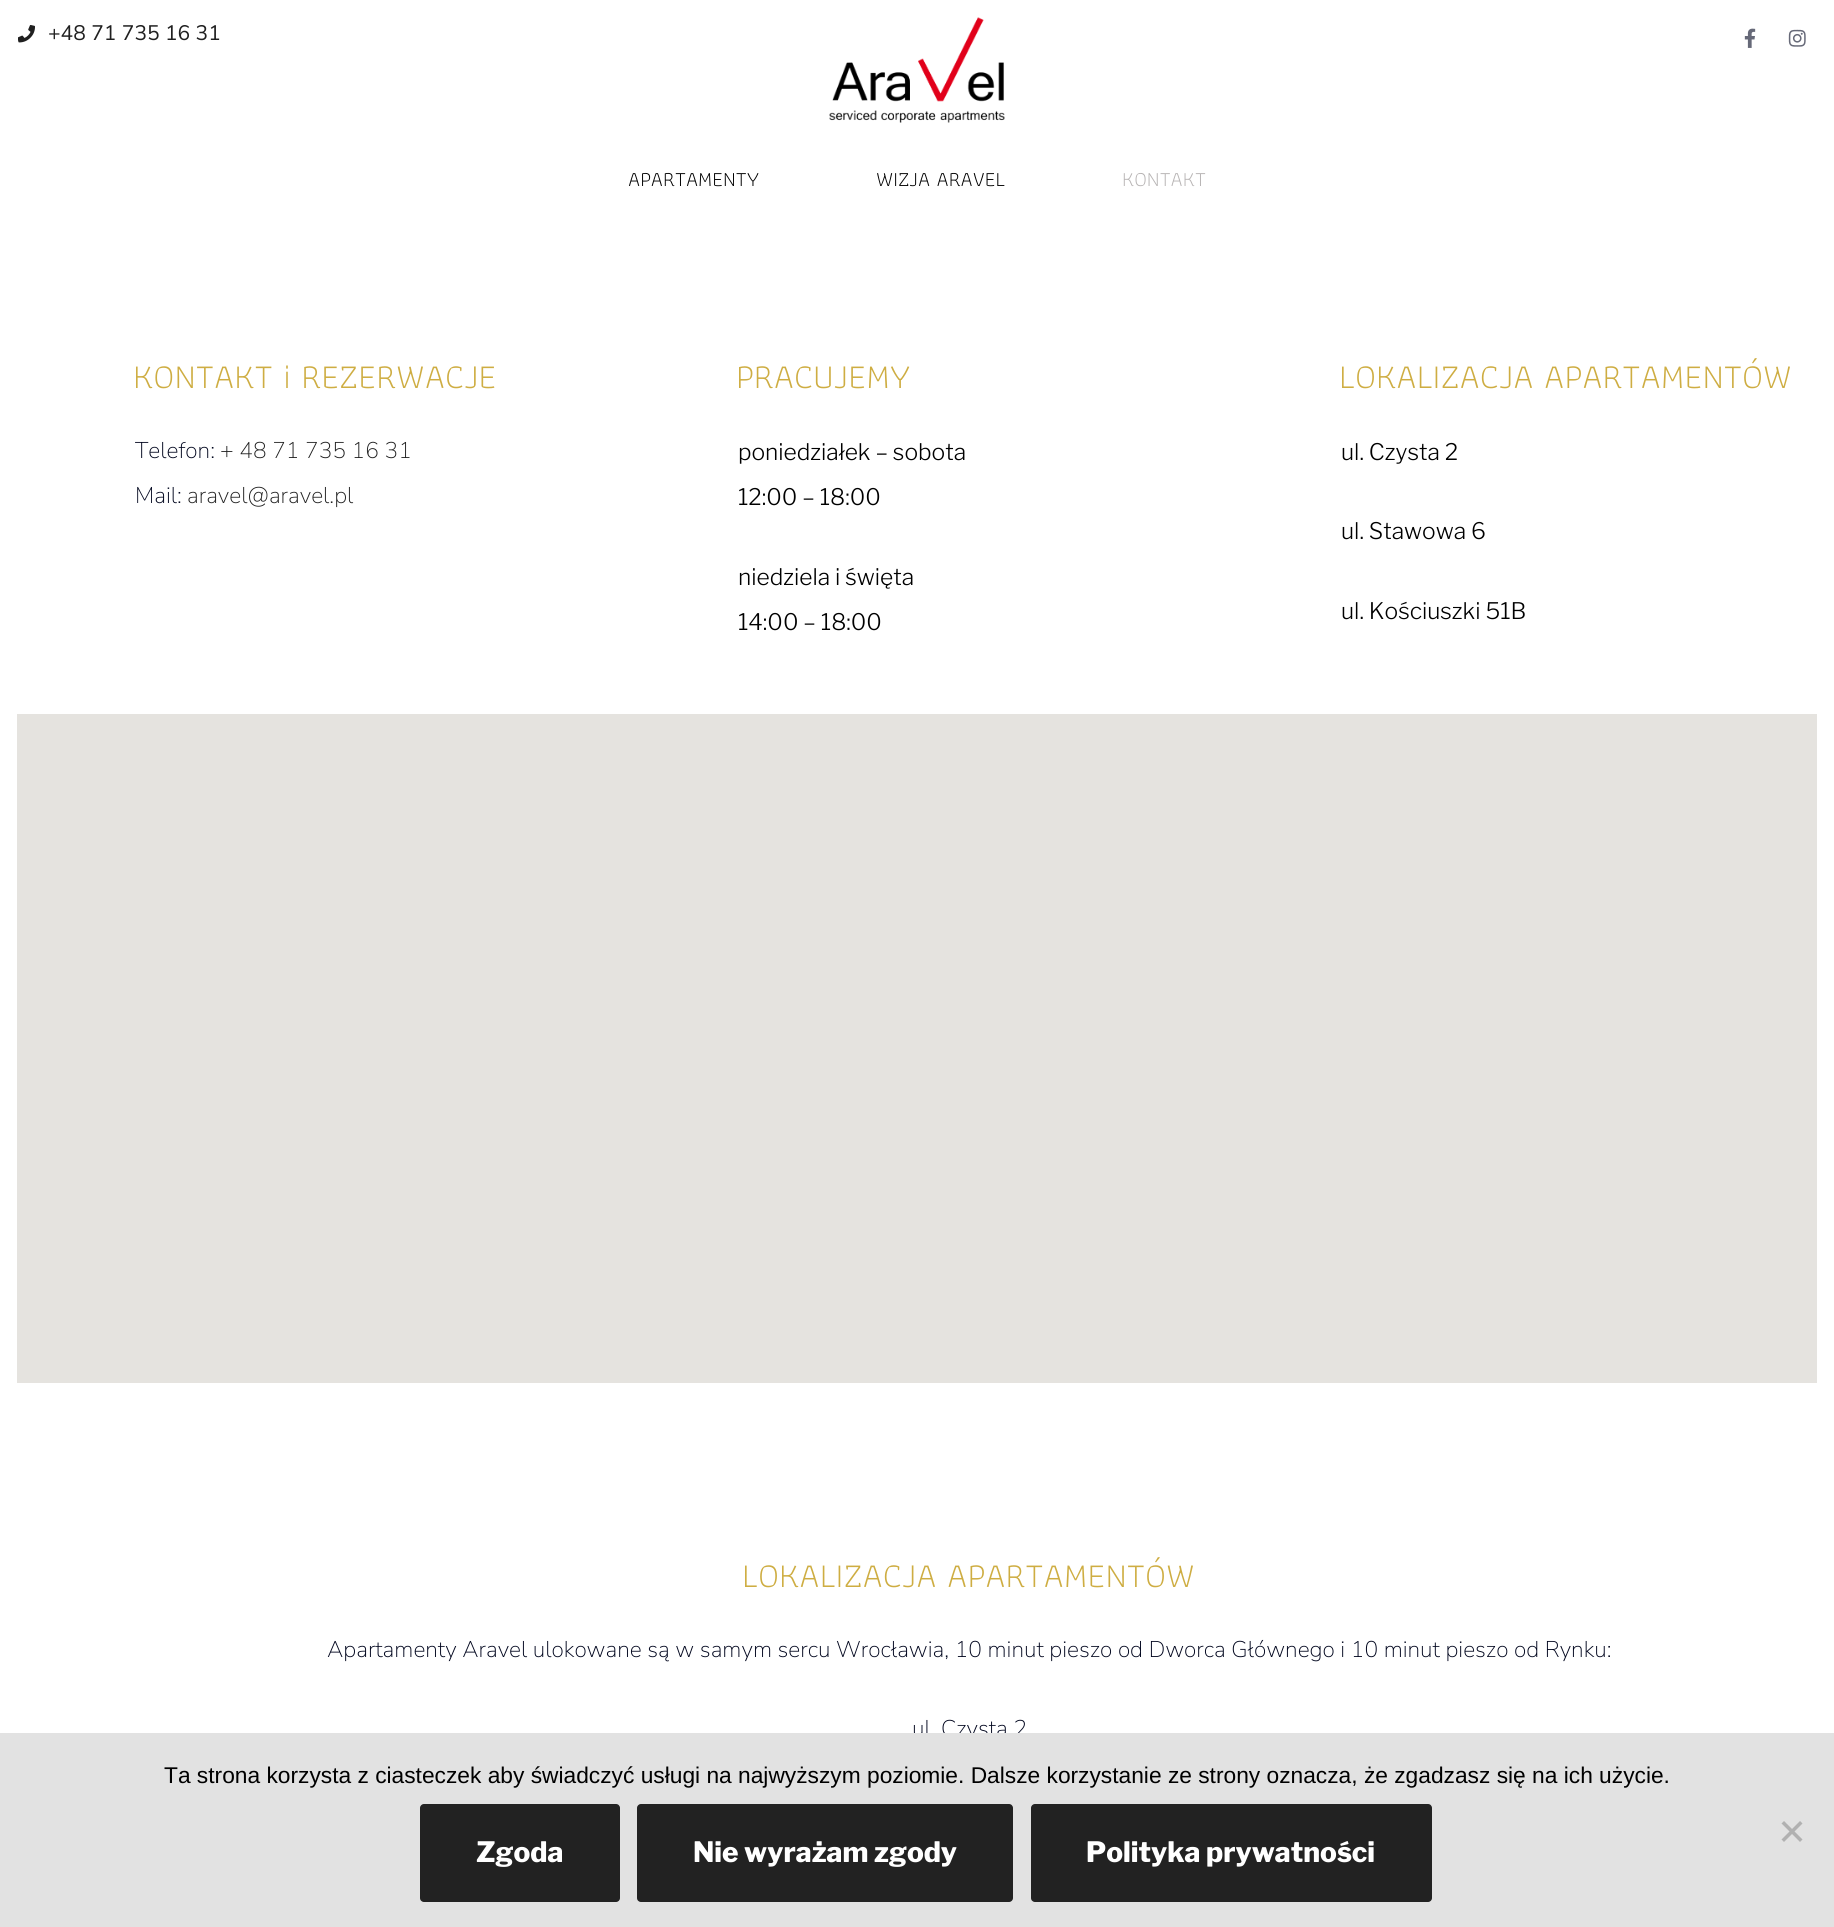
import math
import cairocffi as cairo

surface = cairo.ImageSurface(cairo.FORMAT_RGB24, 1834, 1927)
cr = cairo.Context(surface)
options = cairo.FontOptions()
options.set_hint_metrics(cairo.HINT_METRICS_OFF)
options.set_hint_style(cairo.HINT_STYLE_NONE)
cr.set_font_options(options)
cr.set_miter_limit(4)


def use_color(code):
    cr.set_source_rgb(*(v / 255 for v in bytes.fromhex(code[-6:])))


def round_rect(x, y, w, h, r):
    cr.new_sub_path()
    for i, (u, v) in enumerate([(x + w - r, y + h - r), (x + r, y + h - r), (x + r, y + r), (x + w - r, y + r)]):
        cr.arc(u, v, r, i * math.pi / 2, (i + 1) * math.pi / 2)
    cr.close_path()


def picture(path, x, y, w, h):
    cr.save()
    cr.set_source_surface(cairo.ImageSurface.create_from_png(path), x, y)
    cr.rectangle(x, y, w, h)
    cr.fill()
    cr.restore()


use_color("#ffffff")
cr.paint()
picture("img1.png", 18, 25, 17, 18)
cr.select_font_face("Nunito Sans")
cr.set_font_size(21)
use_color("#202020")
cr.move_to(48, 40)
cr.show_text("+48 71 735 16 31")
picture("img2.png", 829, 17, 176, 106)
picture("img3.png", 1744, 28, 12, 20)
picture("img4.png", 1788, 29, 18, 18)
cr.select_font_face("Athiti Light")
use_color("#000000")
cr.move_to(628, 186)
cr.show_text("APARTAMENTY")
cr.move_to(876, 186)
cr.show_text("WIZJA ARAVEL")
use_color("#b7b4b4")
cr.move_to(1122, 186)
cr.show_text("KONTAKT")
cr.set_font_size(35)
use_color("#cead42")
cr.move_to(133, 388)
cr.show_text("KONTAKT i REZERWACJE")
cr.select_font_face("Nunito Sans ExtraLight")
cr.set_font_size(22.75)
use_color("#01061e")
cr.move_to(135, 458)
cr.show_text("Telefon:")
use_color("#202020")
cr.move_to(220, 458)
cr.show_text("+ 48 71 735 16 31")
use_color("#01061e")
cr.move_to(135, 503)
cr.show_text("Mail:")
use_color("#202020")
cr.move_to(187, 503)
cr.show_text("aravel@aravel.pl")
cr.select_font_face("Athiti Light")
cr.set_font_size(35)
use_color("#cead42")
cr.move_to(736, 388)
cr.show_text("PRACUJEMY")
cr.select_font_face("Libre Franklin Light")
cr.set_font_size(22.75)
use_color("#000000")
cr.move_to(738, 460)
cr.show_text("poniedziałek – sobota")
cr.move_to(738, 505)
cr.show_text("12:00 – 18:00")
cr.move_to(738, 585)
cr.show_text("niedziela i święta")
cr.move_to(738, 630)
cr.show_text("14:00 – 18:00")
cr.select_font_face("Athiti Light")
cr.set_font_size(35)
use_color("#cead42")
cr.move_to(1339, 388)
cr.show_text("LOKALIZACJA APARTAMENTÓW")
cr.select_font_face("Libre Franklin Light")
cr.set_font_size(22.75)
use_color("#000000")
cr.move_to(1341, 460)
cr.show_text("ul. Czysta 2")
cr.move_to(1341, 539)
cr.show_text("ul. Stawowa 6")
cr.move_to(1341, 619)
cr.show_text("ul. Kościuszki 51B")
use_color("#e5e3df")
cr.rectangle(17, 714, 1800, 669)
cr.fill()
cr.select_font_face("Athiti Light")
cr.set_font_size(35)
use_color("#cead42")
cr.move_to(742, 1587)
cr.show_text("LOKALIZACJA APARTAMENTÓW")
cr.select_font_face("Nunito Sans ExtraLight")
cr.set_font_size(22.75)
use_color("#01061e")
cr.move_to(327, 1657)
cr.show_text("Apartamenty Aravel ulokowane są w samym sercu Wrocławia, 10 minut pieszo od Dworca Głównego i 10 minut pieszo od Rynku:")
cr.move_to(912, 1736)
cr.show_text("ul. Czysta 2")
use_color("#e2e2e2")
cr.rectangle(0, 1733, 1834, 194)
cr.fill()
cr.select_font_face("Liberation Sans")
use_color("#000000")
cr.move_to(164, 1783)
cr.show_text("Ta strona korzysta z ciasteczek aby świadczyć usługi na najwyższym poziomie. Dalsze korzystanie ze strony oznacza, że zgadzasz się na ich użycie.")
use_color("#b1b1b1")
cr.new_path()
cr.move_to(1800, 1821)
cr.line_to(1802.5, 1823.5)
cr.line_to(1784, 1842)
cr.line_to(1781.5, 1839.5)
cr.close_path()
cr.fill()
cr.new_path()
cr.move_to(1781.5, 1823.5)
cr.line_to(1784, 1821)
cr.line_to(1802.5, 1839.5)
cr.line_to(1800, 1842)
cr.close_path()
cr.fill()
use_color("#222222")
round_rect(420, 1804, 200, 98, 4)
cr.fill()
cr.select_font_face("Libre Franklin ExtraBold")
cr.set_font_size(28)
use_color("#ffffff")
cr.move_to(476, 1862)
cr.show_text("Zgoda")
use_color("#222222")
round_rect(637, 1804, 376, 98, 4)
cr.fill()
use_color("#ffffff")
cr.move_to(693, 1862)
cr.show_text("Nie wyrażam zgody")
use_color("#222222")
round_rect(1031, 1804, 401, 98, 4)
cr.fill()
use_color("#ffffff")
cr.move_to(1086, 1862)
cr.show_text("Polityka prywatności")
surface.write_to_png("result.png")
